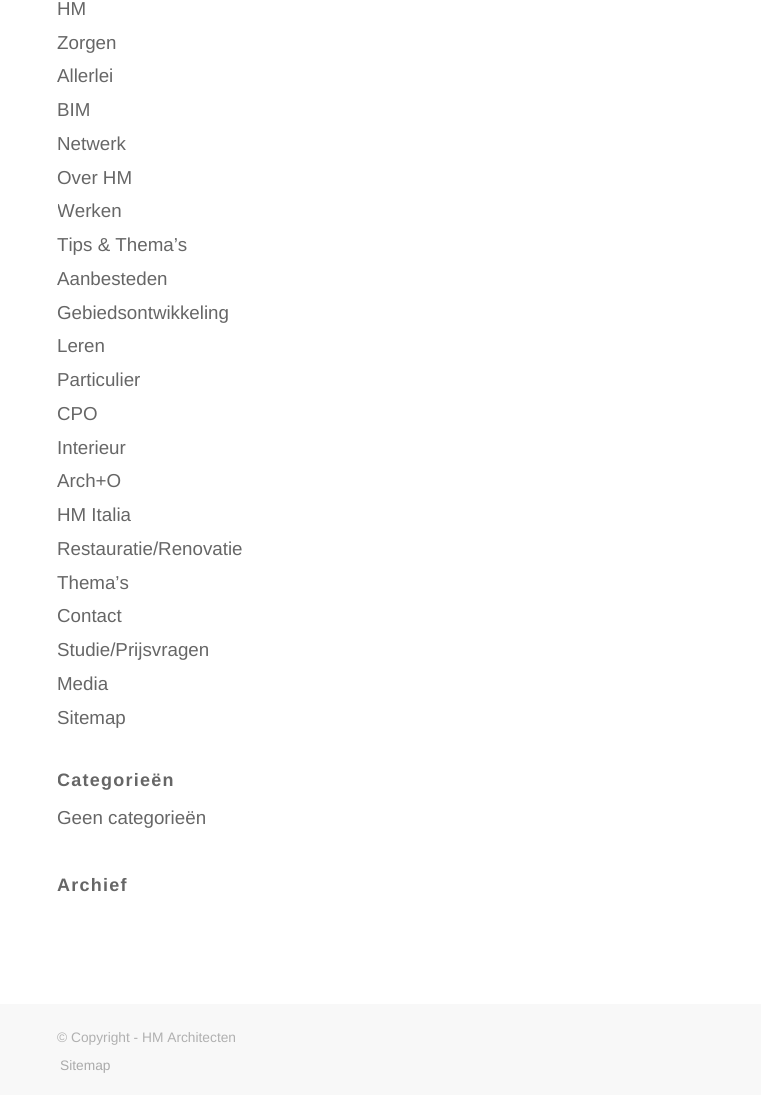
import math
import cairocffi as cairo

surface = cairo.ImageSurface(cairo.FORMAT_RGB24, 761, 1095)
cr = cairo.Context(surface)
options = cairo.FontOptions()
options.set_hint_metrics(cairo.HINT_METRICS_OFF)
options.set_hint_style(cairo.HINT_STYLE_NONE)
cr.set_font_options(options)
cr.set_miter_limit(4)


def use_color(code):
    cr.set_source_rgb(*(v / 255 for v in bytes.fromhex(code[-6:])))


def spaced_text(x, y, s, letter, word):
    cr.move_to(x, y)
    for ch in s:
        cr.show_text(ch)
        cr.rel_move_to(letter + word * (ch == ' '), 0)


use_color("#ffffff")
cr.paint()
cr.select_font_face("Liberation Sans")
cr.set_font_size(18.75)
use_color("#666666")
cr.move_to(57, 15)
cr.show_text("HM")
cr.move_to(57, 49)
cr.show_text("Zorgen")
cr.move_to(57, 82)
cr.show_text("Allerlei")
cr.move_to(57, 116)
cr.show_text("BIM")
cr.move_to(57, 150)
cr.show_text("Netwerk")
cr.move_to(57, 184)
cr.show_text("Over HM")
cr.save()
cr.rectangle(58, 0, 646, 1005)
cr.clip()
cr.move_to(57, 217)
cr.show_text("Werken")
cr.restore()
cr.move_to(57, 251)
cr.show_text("Tips & Thema’s")
cr.move_to(57, 285)
cr.show_text("Aanbesteden")
cr.move_to(57, 319)
cr.show_text("Gebiedsontwikkeling")
cr.move_to(57, 352)
cr.show_text("Leren")
cr.move_to(57, 386)
cr.show_text("Particulier")
cr.move_to(57, 420)
cr.show_text("CPO")
cr.move_to(57, 454)
cr.show_text("Interieur")
cr.move_to(57, 487)
cr.show_text("Arch+O")
cr.move_to(57, 521)
cr.show_text("HM Italia")
cr.move_to(57, 555)
cr.show_text("Restauratie/Renovatie")
cr.move_to(57, 589)
cr.show_text("Thema’s")
cr.move_to(57, 622)
cr.show_text("Contact")
cr.move_to(57, 656)
cr.show_text("Studie/Prijsvragen")
cr.move_to(57, 690)
cr.show_text("Media")
cr.move_to(57, 724)
cr.show_text("Sitemap")
cr.save()
cr.rectangle(58, 0, 646, 1005)
cr.clip()
cr.select_font_face("Liberation Sans", cairo.FONT_SLANT_NORMAL, cairo.FONT_WEIGHT_BOLD)
cr.set_font_size(18)
spaced_text(57, 786, "Categorieën", 1.25, 0)
cr.restore()
cr.move_to(57, 824)
cr.show_text("Geen categorieën")
cr.select_font_face("Liberation Sans", cairo.FONT_SLANT_NORMAL, cairo.FONT_WEIGHT_BOLD)
cr.set_font_size(18)
spaced_text(57, 891, "Archief", 1.25, 0)
use_color("#f8f8f8")
cr.rectangle(0, 1004, 761, 91)
cr.fill()
cr.select_font_face("Liberation Sans")
cr.set_font_size(13.75)
use_color("#b0b0b0")
cr.move_to(57, 1042)
cr.show_text("© Copyright - HM Architecten")
use_color("#aaaaaa")
cr.move_to(60, 1070)
cr.show_text("Sitemap")
surface.write_to_png("result.png")
